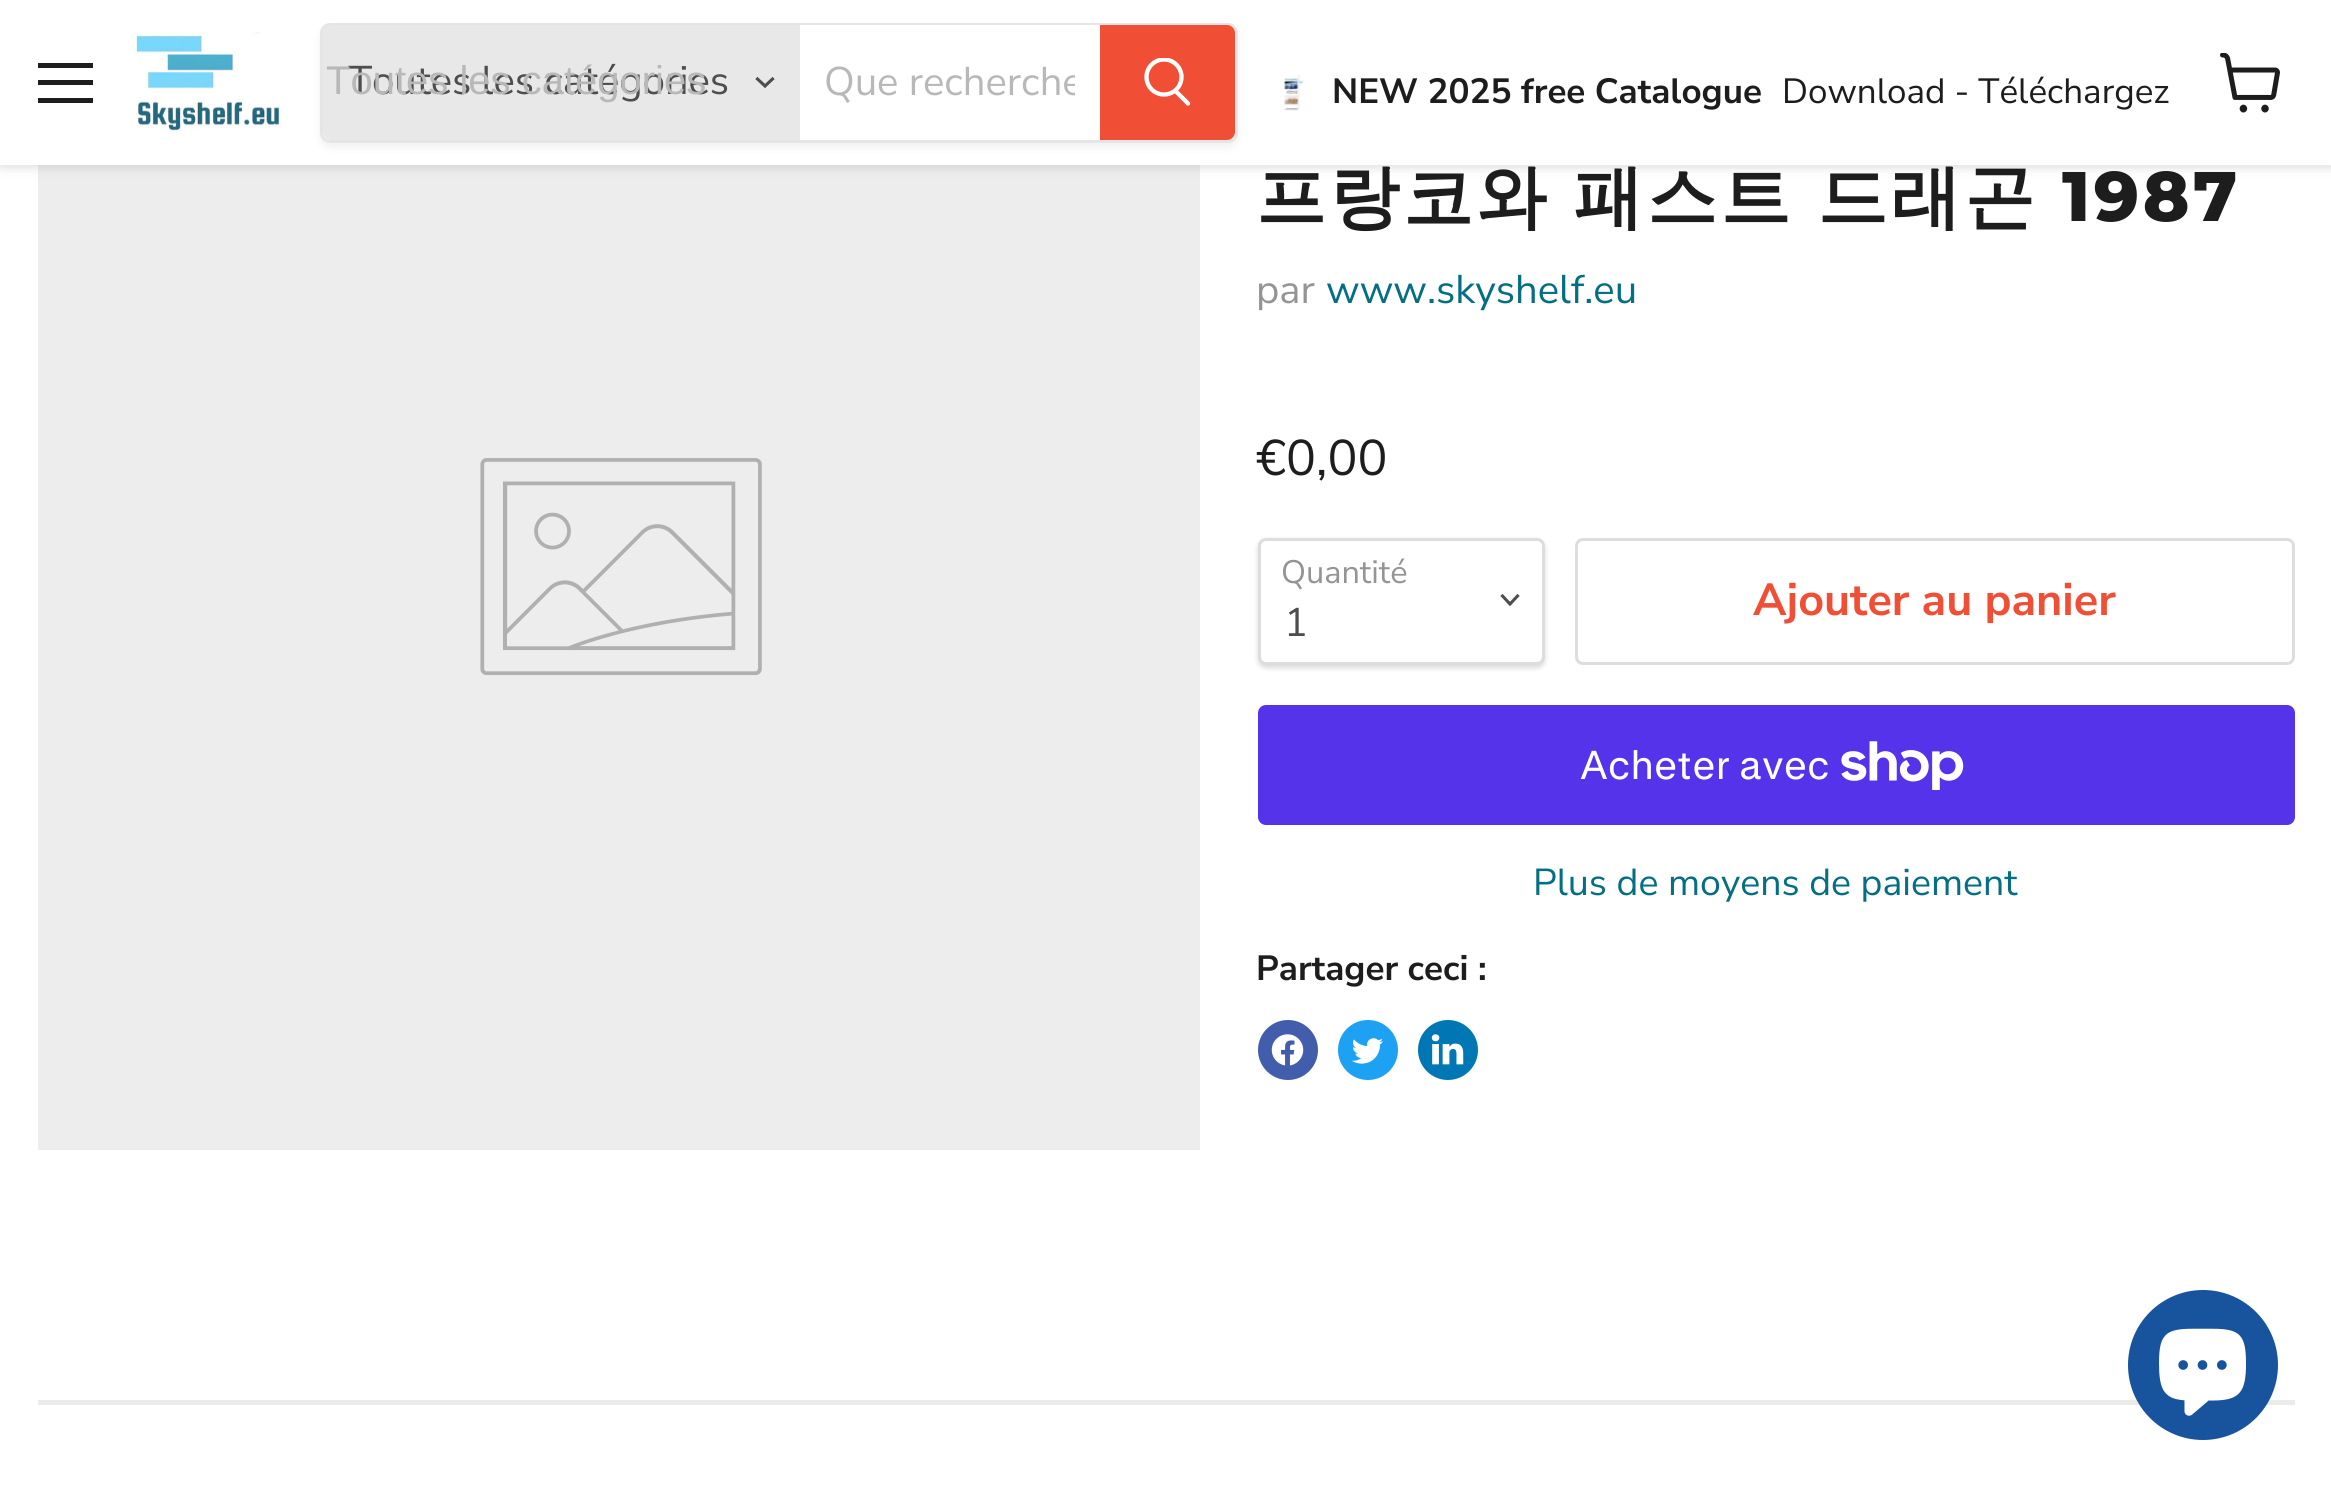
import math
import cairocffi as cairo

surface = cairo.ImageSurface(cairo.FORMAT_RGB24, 2331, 1491)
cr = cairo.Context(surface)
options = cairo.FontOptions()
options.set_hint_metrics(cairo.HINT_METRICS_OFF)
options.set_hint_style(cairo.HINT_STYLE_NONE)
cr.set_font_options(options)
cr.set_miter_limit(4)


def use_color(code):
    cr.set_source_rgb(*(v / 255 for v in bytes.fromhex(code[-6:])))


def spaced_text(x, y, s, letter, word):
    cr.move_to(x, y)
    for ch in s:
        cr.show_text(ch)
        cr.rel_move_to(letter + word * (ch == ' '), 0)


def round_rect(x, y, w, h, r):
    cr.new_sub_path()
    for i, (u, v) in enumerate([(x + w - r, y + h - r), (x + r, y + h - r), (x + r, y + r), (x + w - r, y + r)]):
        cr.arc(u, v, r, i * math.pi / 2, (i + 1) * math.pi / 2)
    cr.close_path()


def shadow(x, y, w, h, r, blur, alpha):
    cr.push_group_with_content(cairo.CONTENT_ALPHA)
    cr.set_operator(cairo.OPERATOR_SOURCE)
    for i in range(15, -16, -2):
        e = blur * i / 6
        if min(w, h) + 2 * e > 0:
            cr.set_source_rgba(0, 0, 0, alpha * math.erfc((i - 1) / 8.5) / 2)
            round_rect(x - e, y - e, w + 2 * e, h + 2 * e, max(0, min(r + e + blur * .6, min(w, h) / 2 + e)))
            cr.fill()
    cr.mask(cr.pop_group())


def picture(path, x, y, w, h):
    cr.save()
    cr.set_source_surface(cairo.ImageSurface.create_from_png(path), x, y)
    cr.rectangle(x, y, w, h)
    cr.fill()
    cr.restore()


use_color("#ffffff")
cr.paint()
use_color("#ededed")
cr.rectangle(38, 165, 1162, 985)
cr.fill()
use_color("#808080")
shadow(0, 3, 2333, 165, 0, 5, 0.25)
use_color("#ffffff")
cr.rectangle(0, 0, 2331, 165)
cr.fill()
use_color("#1d1d1d")
cr.rectangle(38, 63, 55, 5)
cr.fill()
cr.rectangle(38, 80, 55, 5)
cr.fill()
cr.rectangle(38, 98, 55, 5)
cr.fill()
picture("img1.png", 132, 32, 150, 100)
cr.save()
cr.set_fill_rule(cairo.FILL_RULE_EVEN_ODD)
cr.new_path()
cr.move_to(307, 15)
cr.line_to(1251, 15)
cr.line_to(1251, 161)
cr.line_to(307, 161)
cr.close_path()
cr.move_to(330, 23)
cr.line_to(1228, 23)
cr.curve_to(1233.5, 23, 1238, 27.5, 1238, 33)
cr.line_to(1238, 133)
cr.curve_to(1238, 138.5, 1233.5, 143, 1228, 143)
cr.line_to(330, 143)
cr.curve_to(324.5, 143, 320, 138.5, 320, 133)
cr.line_to(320, 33)
cr.curve_to(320, 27.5, 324.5, 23, 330, 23)
cr.close_path()
cr.clip()
use_color("#808080")
shadow(320, 28, 918, 120, 10, 4, 0.11)
cr.restore()
round_rect(321.5, 24.5, 915, 117, 8.5)
cr.set_source_rgba(0.502, 0.502, 0.502, 0.2)
cr.set_line_width(3)
cr.stroke()
use_color("#e8e8e8")
cr.new_path()
cr.move_to(331, 25)
cr.line_to(800, 25)
cr.line_to(800, 140)
cr.line_to(331, 140)
cr.curve_to(326.5, 140, 323, 136.5, 323, 132)
cr.line_to(323, 33)
cr.curve_to(323, 28.5, 326.5, 25, 331, 25)
cr.close_path()
cr.fill()
cr.select_font_face("Nunito Sans")
cr.set_font_size(40)
use_color("#4d4d4d")
cr.move_to(348, 94)
cr.show_text("Toutes les catégories")
cr.select_font_face("Liberation Sans")
use_color("#b8b8b8")
cr.move_to(326, 94)
cr.show_text("Toutes les catégories")
cr.new_path()
cr.move_to(765, 86)
cr.line_to(772.5, 79)
cr.move_to(765, 86)
cr.line_to(757.5, 79)
use_color("#4d4d4d")
cr.set_line_width(3.1)
cr.set_line_cap(cairo.LINE_CAP_SQUARE)
cr.stroke()
use_color("#ffffff")
cr.rectangle(800, 25, 300, 1)
cr.fill()
cr.save()
cr.rectangle(825, 55, 250, 55)
cr.clip()
cr.select_font_face("Nunito Sans")
use_color("#b8b8b8")
cr.move_to(824, 95)
cr.show_text("Que recherche")
cr.restore()
use_color("#f04f36")
cr.new_path()
cr.move_to(1101.5, 26.5)
cr.line_to(1227, 26.5)
cr.curve_to(1230.5, 26.5, 1233.5, 29.5, 1233.5, 33)
cr.line_to(1233.5, 132)
cr.curve_to(1233.5, 135.5, 1230.5, 138.5, 1227, 138.5)
cr.line_to(1101.5, 138.5)
cr.close_path()
cr.fill_preserve()
cr.set_line_width(3)
cr.set_line_cap(cairo.LINE_CAP_BUTT)
cr.stroke()
cr.new_path()
cr.move_to(1188, 103.5)
cr.line_to(1176, 91.5)
use_color("#ffffff")
cr.set_line_width(4.3)
cr.set_line_cap(cairo.LINE_CAP_ROUND)
cr.stroke()
cr.save()
cr.rectangle(1143, 58, 50, 52)
cr.clip()
cr.arc(1164, 77, 17.5, 0, 2 * math.pi)
cr.set_line_cap(cairo.LINE_CAP_BUTT)
cr.stroke()
cr.restore()
picture("img2.png", 1284, 74, 21, 37)
cr.select_font_face("Nunito Sans", cairo.FONT_SLANT_NORMAL, cairo.FONT_WEIGHT_BOLD)
cr.set_font_size(35)
use_color("#1d1d1d")
cr.move_to(1332, 103)
cr.show_text("NEW 2025 free Catalogue")
cr.select_font_face("Nunito Sans")
cr.move_to(1782, 103)
cr.show_text("Download - Téléchargez")
picture("img3.png", 2220, 53, 60, 60)
picture("img4.png", 480, 458, 282, 218)
cr.select_font_face("WenQuanYi Zen Hei", cairo.FONT_SLANT_NORMAL, cairo.FONT_WEIGHT_BOLD)
cr.set_font_size(70)
spaced_text(1256, 221, "프랑코와 패스트 드래곤", 3.5, -1)
cr.select_font_face("Montserrat ExtraBold")
spaced_text(2062, 221, "1987", 3.5, 0)
cr.select_font_face("Nunito Sans")
cr.set_font_size(40)
use_color("#949494")
cr.move_to(1256, 303)
cr.show_text("par")
use_color("#046e82")
cr.move_to(1326, 303)
cr.show_text("www.skyshelf.eu")
cr.set_font_size(50)
use_color("#1d1d1d")
cr.move_to(1256, 475)
cr.show_text("€0,00")
use_color("#000000")
shadow(1258, 540, 287, 128, 8, 2.5, 0.15)
use_color("#ffffff")
round_rect(1259.5, 539.5, 284, 124, 6.5)
cr.fill_preserve()
use_color("#dddddd")
cr.set_line_width(3)
cr.set_line_cap(cairo.LINE_CAP_BUTT)
cr.stroke()
cr.set_font_size(32.5)
use_color("#949494")
cr.move_to(1281, 583)
cr.show_text("Quantité")
cr.new_path()
cr.move_to(1510, 604)
cr.line_to(1517.5, 596)
cr.move_to(1510, 604)
cr.line_to(1502.5, 596)
use_color("#4d4d4d")
cr.set_line_width(3.1)
cr.set_line_cap(cairo.LINE_CAP_SQUARE)
cr.stroke()
cr.set_font_size(40)
cr.move_to(1284, 636)
cr.show_text("1")
round_rect(1576.5, 539.5, 717, 124, 6.5)
use_color("#dddddd")
cr.set_line_width(3)
cr.set_line_cap(cairo.LINE_CAP_BUTT)
cr.stroke()
cr.select_font_face("Nunito Sans", cairo.FONT_SLANT_NORMAL, cairo.FONT_WEIGHT_BOLD)
cr.set_font_size(45)
use_color("#f04f36")
cr.move_to(1753, 615)
cr.show_text("Ajouter au panier")
use_color("#5433eb")
round_rect(1258, 705, 1037, 120, 8)
cr.fill()
cr.select_font_face("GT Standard")
cr.set_font_size(40)
use_color("#ffffff")
cr.move_to(1580, 779)
cr.show_text("Acheter avec")
picture("img5.png", 1841, 741, 123, 49)
cr.select_font_face("Nunito Sans")
cr.set_font_size(37.5)
use_color("#046e82")
cr.move_to(1533, 895)
cr.show_text("Plus de moyens de paiement")
cr.select_font_face("Nunito Sans", cairo.FONT_SLANT_NORMAL, cairo.FONT_WEIGHT_BOLD)
cr.set_font_size(35)
use_color("#1d1d1d")
cr.move_to(1256, 980)
cr.show_text("Partager ceci :")
use_color("#425dab")
cr.new_path()
cr.arc(1288, 1050, 30, 0, 2 * math.pi)
cr.fill()
picture("img6.png", 1271, 1034, 33, 32)
use_color("#1da1f2")
cr.arc(1368, 1050, 30, 0, 2 * math.pi)
cr.fill()
picture("img7.png", 1352, 1038, 31, 26)
use_color("#0077b5")
cr.arc(1448, 1050, 30, 0, 2 * math.pi)
cr.fill()
picture("img8.png", 1431, 1034, 33, 31)
use_color("#ebebeb")
cr.rectangle(38, 1400, 2257, 5)
cr.fill()
use_color("#18549d")
cr.arc(2203, 1365, 75, 0, 2 * math.pi)
cr.fill()
picture("img9.png", 2159, 1328, 87, 88)
surface.write_to_png("result.png")
